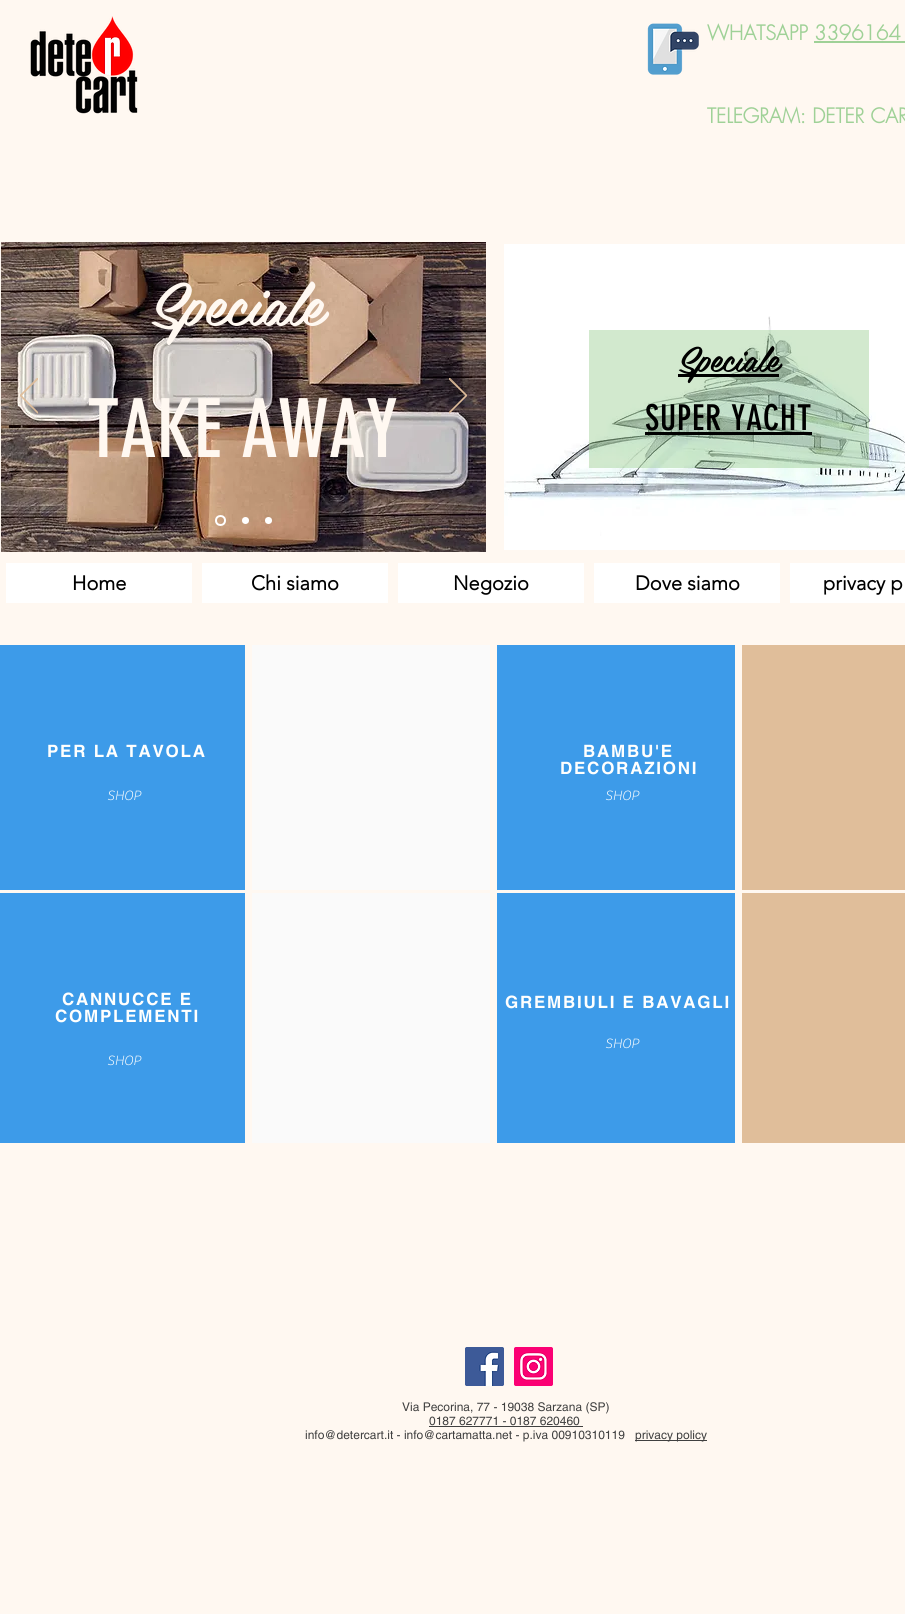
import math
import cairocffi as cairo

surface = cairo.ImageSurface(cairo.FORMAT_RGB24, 905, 1614)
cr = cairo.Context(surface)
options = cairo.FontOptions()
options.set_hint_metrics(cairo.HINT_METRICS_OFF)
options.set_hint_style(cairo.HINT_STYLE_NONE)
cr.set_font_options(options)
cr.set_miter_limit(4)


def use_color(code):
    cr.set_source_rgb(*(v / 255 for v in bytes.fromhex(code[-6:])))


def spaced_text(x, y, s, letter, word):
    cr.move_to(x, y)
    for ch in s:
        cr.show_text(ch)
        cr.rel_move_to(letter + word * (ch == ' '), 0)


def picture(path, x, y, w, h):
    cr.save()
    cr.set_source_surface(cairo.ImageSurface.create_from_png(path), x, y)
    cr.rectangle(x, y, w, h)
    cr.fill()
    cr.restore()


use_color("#fff8f1")
cr.paint()
picture("img1.png", 30, 16, 108, 98)
picture("img2.png", 647, 23, 52, 52)
cr.select_font_face("futura", cairo.FONT_SLANT_NORMAL, cairo.FONT_WEIGHT_BOLD)
cr.set_font_size(20)
use_color("#9fd197")
cr.move_to(707, 40)
cr.show_text("WHATSAPP 3396164")
cr.rectangle(814, 41, 91, 2)
cr.fill()
cr.move_to(707, 123)
cr.show_text("TELEGRAM: DETER CAR")
picture("img3.png", 1, 242, 485, 310)
cr.save()
cr.rectangle(20, 378, 18, 36)
cr.clip()
cr.new_path()
cr.move_to(37.5, 413)
cr.line_to(20, 395.5)
cr.line_to(37.5, 378)
cr.line_to(38, 379)
cr.line_to(21, 395.5)
cr.line_to(38, 412.5)
cr.close_path()
use_color("#e0be9a")
cr.set_line_width(0.9)
cr.stroke()
cr.restore()
cr.select_font_face("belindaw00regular")
cr.set_font_size(60)
use_color("#fff8f1")
cr.move_to(150, 326)
cr.show_text("Speciale")
cr.select_font_face("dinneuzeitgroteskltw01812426")
cr.set_font_size(80)
cr.move_to(87, 457)
cr.show_text("TAKE AWAY")
cr.save()
cr.rectangle(449, 378, 18, 36)
cr.clip()
cr.new_path()
cr.move_to(449.5, 413)
cr.line_to(467, 395.5)
cr.line_to(449.5, 378)
cr.line_to(449, 379)
cr.line_to(466, 395.5)
cr.line_to(449, 412.5)
cr.close_path()
use_color("#e0be9a")
cr.set_line_width(0.9)
cr.stroke()
cr.restore()
cr.arc(220.5, 520.5, 4.5, 0, 2 * math.pi)
use_color("#ffffff")
cr.stroke()
cr.arc(245.5, 520.5, 3.5, 0, 2 * math.pi)
cr.fill()
cr.arc(268.5, 520.5, 3.5, 0, 2 * math.pi)
cr.fill()
picture("img4.png", 504, 244, 401, 306)
cr.set_source_rgba(0.624, 0.82, 0.592, 0.47)
cr.rectangle(589, 330, 280, 138)
cr.fill()
use_color("#000000")
cr.rectangle(678, 374, 101, 3)
cr.fill()
cr.select_font_face("belindaw00regular")
cr.set_font_size(35)
cr.move_to(678, 372)
cr.show_text("Speciale")
cr.select_font_face("dinneuzeitgroteskltw01812426")
spaced_text(645, 430, "SUPER YACHT", 0.75, 0)
cr.rectangle(645, 432, 167, 3)
cr.fill()
use_color("#ffffff")
cr.rectangle(6, 563, 186, 40)
cr.fill()
cr.select_font_face("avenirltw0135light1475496", cairo.FONT_SLANT_NORMAL, cairo.FONT_WEIGHT_BOLD)
cr.set_font_size(20)
use_color("#000000")
cr.move_to(72, 590)
cr.show_text("Home")
use_color("#ffffff")
cr.rectangle(202, 563, 186, 40)
cr.fill()
use_color("#000000")
cr.move_to(251, 590)
cr.show_text("Chi siamo")
use_color("#ffffff")
cr.rectangle(398, 563, 186, 40)
cr.fill()
use_color("#000000")
cr.move_to(453, 590)
cr.show_text("Negozio")
use_color("#ffffff")
cr.rectangle(594, 563, 186, 40)
cr.fill()
use_color("#000000")
cr.move_to(635, 590)
cr.show_text("Dove siamo")
use_color("#ffffff")
cr.rectangle(790, 563, 115, 40)
cr.fill()
use_color("#000000")
cr.move_to(823, 590)
cr.show_text("privacy p")
use_color("#3d9be9")
cr.rectangle(0, 645, 245, 245)
cr.fill()
cr.select_font_face("helvetica", cairo.FONT_SLANT_NORMAL, cairo.FONT_WEIGHT_BOLD)
cr.set_font_size(17)
use_color("#fffffe")
spaced_text(47, 757, "PER LA TAVOLA", 1.75, 0)
cr.select_font_face("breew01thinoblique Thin")
cr.set_font_size(14)
cr.move_to(107, 800)
cr.show_text("SHOP")
use_color("#fafafa")
cr.rectangle(252, 645, 238, 245)
cr.fill()
use_color("#3d9be9")
cr.rectangle(497, 645, 238, 245)
cr.fill()
cr.select_font_face("helvetica", cairo.FONT_SLANT_NORMAL, cairo.FONT_WEIGHT_BOLD)
cr.set_font_size(17)
use_color("#fffffe")
spaced_text(583, 757, "BAMBU'E", 1.75, 0)
spaced_text(560, 774, "DECORAZIONI", 1.75, 0)
cr.select_font_face("breew01thinoblique Thin")
cr.set_font_size(14)
cr.move_to(605, 800)
cr.show_text("SHOP")
use_color("#e0be9a")
cr.rectangle(742, 645, 163, 245)
cr.fill()
use_color("#3d9be9")
cr.rectangle(0, 893, 245, 250)
cr.fill()
cr.select_font_face("helvetica", cairo.FONT_SLANT_NORMAL, cairo.FONT_WEIGHT_BOLD)
cr.set_font_size(17)
use_color("#fffffe")
spaced_text(62, 1005, "CANNUCCE E", 1.75, 0)
spaced_text(55, 1022, "COMPLEMENTI", 1.75, 0)
cr.select_font_face("breew01thinoblique Thin")
cr.set_font_size(14)
cr.move_to(107, 1065)
cr.show_text("SHOP")
use_color("#fafafa")
cr.rectangle(252, 893, 238, 250)
cr.fill()
use_color("#3d9be9")
cr.rectangle(497, 893, 238, 250)
cr.fill()
cr.select_font_face("helvetica", cairo.FONT_SLANT_NORMAL, cairo.FONT_WEIGHT_BOLD)
cr.set_font_size(17)
use_color("#fffffe")
spaced_text(505, 1008, "GREMBIULI E BAVAGLI", 1.75, 0)
cr.select_font_face("breew01thinoblique Thin")
cr.set_font_size(14)
cr.move_to(605, 1048)
cr.show_text("SHOP")
use_color("#e0be9a")
cr.rectangle(742, 893, 163, 250)
cr.fill()
picture("img5.png", 465, 1347, 39, 39)
picture("img6.png", 514, 1347, 39, 39)
cr.select_font_face("helvetica")
cr.set_font_size(12)
use_color("#404040")
cr.move_to(402, 1411)
cr.show_text("Via Pecorina, 77 - 19038 Sarzana (SP)")
cr.move_to(429, 1425)
cr.show_text("0187 627771 - 0187 620460")
cr.rectangle(429, 1426, 154, 1)
cr.fill()
cr.move_to(305, 1439)
cr.show_text("info@detercart.it - info@cartamatta.net - p.iva 00910310119")
cr.rectangle(635, 1440, 72, 1)
cr.fill()
cr.move_to(635, 1439)
cr.show_text("privacy policy")
surface.write_to_png("result.png")
